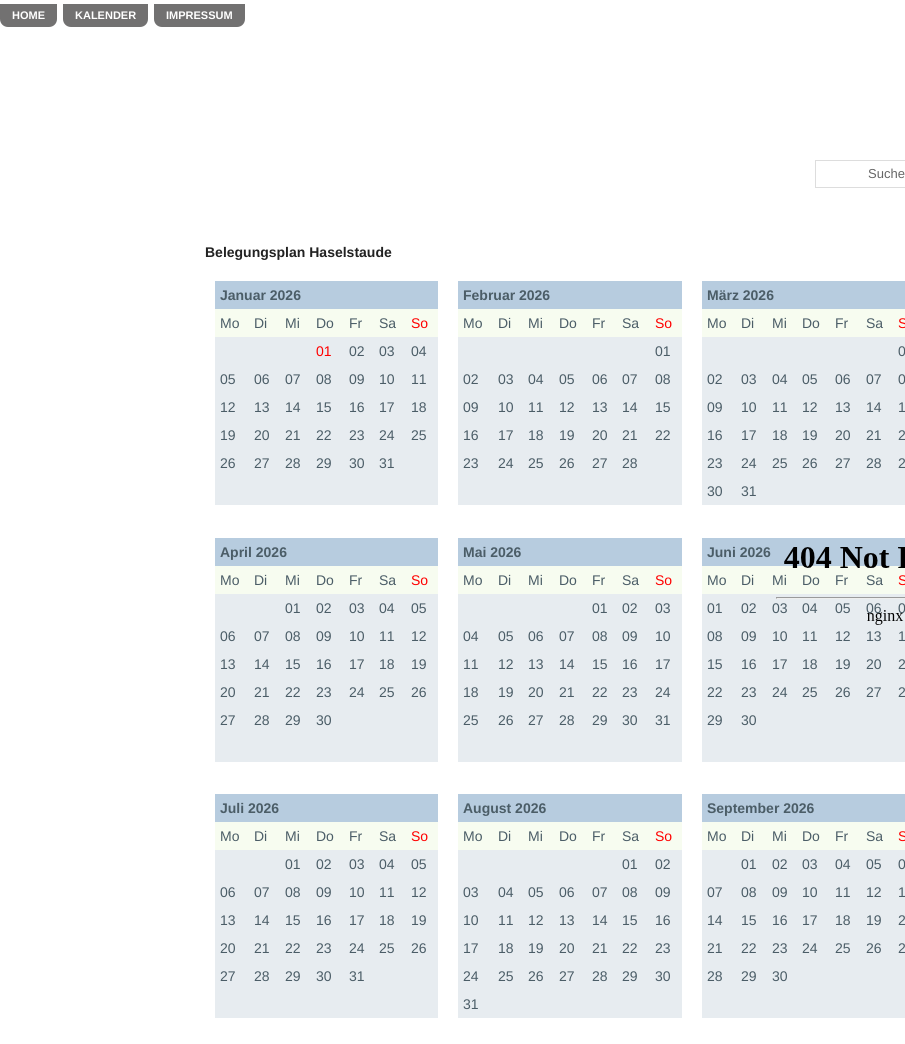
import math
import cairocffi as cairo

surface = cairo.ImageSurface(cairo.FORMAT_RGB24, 905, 1044)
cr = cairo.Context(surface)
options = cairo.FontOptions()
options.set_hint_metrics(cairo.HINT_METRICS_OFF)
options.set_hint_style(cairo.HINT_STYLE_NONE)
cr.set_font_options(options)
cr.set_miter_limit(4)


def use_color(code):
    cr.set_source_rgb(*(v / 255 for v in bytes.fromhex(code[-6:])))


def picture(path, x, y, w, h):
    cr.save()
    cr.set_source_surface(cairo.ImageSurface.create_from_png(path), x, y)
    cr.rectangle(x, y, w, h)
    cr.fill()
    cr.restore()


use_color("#ffffff")
cr.paint()
use_color("#727171")
cr.new_path()
cr.move_to(0, 4)
cr.line_to(57, 4)
cr.line_to(57, 19)
cr.curve_to(57, 23.5, 53.5, 27, 49, 27)
cr.line_to(8, 27)
cr.curve_to(3.5, 27, 0, 23.5, 0, 19)
cr.close_path()
cr.fill()
cr.select_font_face("Liberation Sans", cairo.FONT_SLANT_NORMAL, cairo.FONT_WEIGHT_BOLD)
cr.set_font_size(11)
use_color("#ffffff")
cr.move_to(12, 19)
cr.show_text("HOME")
use_color("#727171")
cr.new_path()
cr.move_to(63, 4)
cr.line_to(148, 4)
cr.line_to(148, 19)
cr.curve_to(148, 23.5, 144.5, 27, 140, 27)
cr.line_to(71, 27)
cr.curve_to(66.5, 27, 63, 23.5, 63, 19)
cr.close_path()
cr.fill()
use_color("#ffffff")
cr.move_to(75, 19)
cr.show_text("KALENDER")
use_color("#727171")
cr.new_path()
cr.move_to(154, 4)
cr.line_to(245, 4)
cr.line_to(245, 19)
cr.curve_to(245, 23.5, 241.5, 27, 237, 27)
cr.line_to(162, 27)
cr.curve_to(157.5, 27, 154, 23.5, 154, 19)
cr.close_path()
cr.fill()
use_color("#ffffff")
cr.move_to(166, 19)
cr.show_text("IMPRESSUM")
cr.rectangle(815.5, 160.5, 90, 27)
use_color("#dddddd")
cr.set_line_width(1)
cr.stroke()
cr.select_font_face("Liberation Sans")
cr.set_font_size(13)
use_color("#666666")
cr.move_to(868, 178)
cr.show_text("Suche")
cr.select_font_face("Liberation Sans", cairo.FONT_SLANT_NORMAL, cairo.FONT_WEIGHT_BOLD)
cr.set_font_size(14)
use_color("#222222")
cr.move_to(205, 257)
cr.show_text("Belegungsplan Haselstaude")
use_color("#b7ccdf")
cr.rectangle(215, 281, 223, 28)
cr.fill()
use_color("#4b5d67")
cr.move_to(220, 300)
cr.show_text("Januar 2026")
use_color("#f7fcf0")
cr.rectangle(215, 309, 223, 28)
cr.fill()
cr.select_font_face("Liberation Sans")
use_color("#4b5d67")
cr.move_to(220, 328)
cr.show_text("Mo")
cr.move_to(254, 328)
cr.show_text("Di")
cr.move_to(285, 328)
cr.show_text("Mi")
cr.move_to(316, 328)
cr.show_text("Do")
cr.move_to(349, 328)
cr.show_text("Fr")
cr.move_to(379, 328)
cr.show_text("Sa")
use_color("#ff0000")
cr.move_to(411, 328)
cr.show_text("So")
use_color("#e7ecf0")
cr.rectangle(215, 337, 223, 28)
cr.fill()
use_color("#ff0000")
cr.move_to(316, 356)
cr.show_text("01")
use_color("#4b5d67")
cr.move_to(349, 356)
cr.show_text("02")
cr.move_to(379, 356)
cr.show_text("03")
cr.move_to(411, 356)
cr.show_text("04")
use_color("#e7ecf0")
cr.rectangle(215, 365, 223, 28)
cr.fill()
use_color("#4b5d67")
cr.move_to(220, 384)
cr.show_text("05")
cr.move_to(254, 384)
cr.show_text("06")
cr.move_to(285, 384)
cr.show_text("07")
cr.move_to(316, 384)
cr.show_text("08")
cr.move_to(349, 384)
cr.show_text("09")
cr.move_to(379, 384)
cr.show_text("10")
cr.move_to(411, 384)
cr.show_text("11")
use_color("#e7ecf0")
cr.rectangle(215, 393, 223, 28)
cr.fill()
use_color("#4b5d67")
cr.move_to(220, 412)
cr.show_text("12")
cr.move_to(254, 412)
cr.show_text("13")
cr.move_to(285, 412)
cr.show_text("14")
cr.move_to(316, 412)
cr.show_text("15")
cr.move_to(349, 412)
cr.show_text("16")
cr.move_to(379, 412)
cr.show_text("17")
cr.move_to(411, 412)
cr.show_text("18")
use_color("#e7ecf0")
cr.rectangle(215, 421, 223, 28)
cr.fill()
use_color("#4b5d67")
cr.move_to(220, 440)
cr.show_text("19")
cr.move_to(254, 440)
cr.show_text("20")
cr.move_to(285, 440)
cr.show_text("21")
cr.move_to(316, 440)
cr.show_text("22")
cr.move_to(349, 440)
cr.show_text("23")
cr.move_to(379, 440)
cr.show_text("24")
cr.move_to(411, 440)
cr.show_text("25")
use_color("#e7ecf0")
cr.rectangle(215, 449, 223, 28)
cr.fill()
use_color("#4b5d67")
cr.move_to(220, 468)
cr.show_text("26")
cr.move_to(254, 468)
cr.show_text("27")
cr.move_to(285, 468)
cr.show_text("28")
cr.move_to(316, 468)
cr.show_text("29")
cr.move_to(349, 468)
cr.show_text("30")
cr.move_to(379, 468)
cr.show_text("31")
use_color("#e7ecf0")
cr.rectangle(215, 477, 223, 28)
cr.fill()
use_color("#b7ccdf")
cr.rectangle(458, 281, 224, 28)
cr.fill()
cr.select_font_face("Liberation Sans", cairo.FONT_SLANT_NORMAL, cairo.FONT_WEIGHT_BOLD)
use_color("#4b5d67")
cr.move_to(463, 300)
cr.show_text("Februar 2026")
use_color("#f7fcf0")
cr.rectangle(458, 309, 224, 28)
cr.fill()
cr.select_font_face("Liberation Sans")
use_color("#4b5d67")
cr.move_to(463, 328)
cr.show_text("Mo")
cr.move_to(498, 328)
cr.show_text("Di")
cr.move_to(528, 328)
cr.show_text("Mi")
cr.move_to(559, 328)
cr.show_text("Do")
cr.move_to(592, 328)
cr.show_text("Fr")
cr.move_to(622, 328)
cr.show_text("Sa")
use_color("#ff0000")
cr.move_to(655, 328)
cr.show_text("So")
use_color("#e7ecf0")
cr.rectangle(458, 337, 224, 28)
cr.fill()
use_color("#4b5d67")
cr.move_to(655, 356)
cr.show_text("01")
use_color("#e7ecf0")
cr.rectangle(458, 365, 224, 28)
cr.fill()
use_color("#4b5d67")
cr.move_to(463, 384)
cr.show_text("02")
cr.move_to(498, 384)
cr.show_text("03")
cr.move_to(528, 384)
cr.show_text("04")
cr.move_to(559, 384)
cr.show_text("05")
cr.move_to(592, 384)
cr.show_text("06")
cr.move_to(622, 384)
cr.show_text("07")
cr.move_to(655, 384)
cr.show_text("08")
use_color("#e7ecf0")
cr.rectangle(458, 393, 224, 28)
cr.fill()
use_color("#4b5d67")
cr.move_to(463, 412)
cr.show_text("09")
cr.move_to(498, 412)
cr.show_text("10")
cr.move_to(528, 412)
cr.show_text("11")
cr.move_to(559, 412)
cr.show_text("12")
cr.move_to(592, 412)
cr.show_text("13")
cr.move_to(622, 412)
cr.show_text("14")
cr.move_to(655, 412)
cr.show_text("15")
use_color("#e7ecf0")
cr.rectangle(458, 421, 224, 28)
cr.fill()
use_color("#4b5d67")
cr.move_to(463, 440)
cr.show_text("16")
cr.move_to(498, 440)
cr.show_text("17")
cr.move_to(528, 440)
cr.show_text("18")
cr.move_to(559, 440)
cr.show_text("19")
cr.move_to(592, 440)
cr.show_text("20")
cr.move_to(622, 440)
cr.show_text("21")
cr.move_to(655, 440)
cr.show_text("22")
use_color("#e7ecf0")
cr.rectangle(458, 449, 224, 28)
cr.fill()
use_color("#4b5d67")
cr.move_to(463, 468)
cr.show_text("23")
cr.move_to(498, 468)
cr.show_text("24")
cr.move_to(528, 468)
cr.show_text("25")
cr.move_to(559, 468)
cr.show_text("26")
cr.move_to(592, 468)
cr.show_text("27")
cr.move_to(622, 468)
cr.show_text("28")
use_color("#e7ecf0")
cr.rectangle(458, 477, 224, 28)
cr.fill()
use_color("#b7ccdf")
cr.rectangle(702, 281, 203, 28)
cr.fill()
cr.select_font_face("Liberation Sans", cairo.FONT_SLANT_NORMAL, cairo.FONT_WEIGHT_BOLD)
use_color("#4b5d67")
cr.move_to(707, 300)
cr.show_text("März 2026")
use_color("#f7fcf0")
cr.rectangle(702, 309, 203, 28)
cr.fill()
cr.select_font_face("Liberation Sans")
use_color("#4b5d67")
cr.move_to(707, 328)
cr.show_text("Mo")
cr.move_to(741, 328)
cr.show_text("Di")
cr.move_to(772, 328)
cr.show_text("Mi")
cr.move_to(802, 328)
cr.show_text("Do")
cr.move_to(835, 328)
cr.show_text("Fr")
cr.move_to(866, 328)
cr.show_text("Sa")
use_color("#ff0000")
cr.move_to(898, 328)
cr.show_text("S")
use_color("#e7ecf0")
cr.rectangle(702, 337, 203, 28)
cr.fill()
use_color("#4b5d67")
cr.move_to(898, 356)
cr.show_text("0")
use_color("#e7ecf0")
cr.rectangle(702, 365, 203, 28)
cr.fill()
use_color("#4b5d67")
cr.move_to(707, 384)
cr.show_text("02")
cr.move_to(741, 384)
cr.show_text("03")
cr.move_to(772, 384)
cr.show_text("04")
cr.move_to(802, 384)
cr.show_text("05")
cr.move_to(835, 384)
cr.show_text("06")
cr.move_to(866, 384)
cr.show_text("07")
cr.move_to(898, 384)
cr.show_text("0")
use_color("#e7ecf0")
cr.rectangle(702, 393, 203, 28)
cr.fill()
use_color("#4b5d67")
cr.move_to(707, 412)
cr.show_text("09")
cr.move_to(741, 412)
cr.show_text("10")
cr.move_to(772, 412)
cr.show_text("11")
cr.move_to(802, 412)
cr.show_text("12")
cr.move_to(835, 412)
cr.show_text("13")
cr.move_to(866, 412)
cr.show_text("14")
cr.move_to(898, 412)
cr.show_text("1")
use_color("#e7ecf0")
cr.rectangle(702, 421, 203, 28)
cr.fill()
use_color("#4b5d67")
cr.move_to(707, 440)
cr.show_text("16")
cr.move_to(741, 440)
cr.show_text("17")
cr.move_to(772, 440)
cr.show_text("18")
cr.move_to(802, 440)
cr.show_text("19")
cr.move_to(835, 440)
cr.show_text("20")
cr.move_to(866, 440)
cr.show_text("21")
cr.move_to(898, 440)
cr.show_text("2")
use_color("#e7ecf0")
cr.rectangle(702, 449, 203, 28)
cr.fill()
use_color("#4b5d67")
cr.move_to(707, 468)
cr.show_text("23")
cr.move_to(741, 468)
cr.show_text("24")
cr.move_to(772, 468)
cr.show_text("25")
cr.move_to(802, 468)
cr.show_text("26")
cr.move_to(835, 468)
cr.show_text("27")
cr.move_to(866, 468)
cr.show_text("28")
cr.move_to(898, 468)
cr.show_text("2")
use_color("#e7ecf0")
cr.rectangle(702, 477, 203, 28)
cr.fill()
use_color("#4b5d67")
cr.move_to(707, 496)
cr.show_text("30")
cr.move_to(741, 496)
cr.show_text("31")
use_color("#b7ccdf")
cr.rectangle(215, 538, 223, 28)
cr.fill()
cr.select_font_face("Liberation Sans", cairo.FONT_SLANT_NORMAL, cairo.FONT_WEIGHT_BOLD)
use_color("#4b5d67")
cr.move_to(220, 557)
cr.show_text("April 2026")
use_color("#f7fcf0")
cr.rectangle(215, 566, 223, 28)
cr.fill()
cr.select_font_face("Liberation Sans")
use_color("#4b5d67")
cr.move_to(220, 585)
cr.show_text("Mo")
cr.move_to(254, 585)
cr.show_text("Di")
cr.move_to(285, 585)
cr.show_text("Mi")
cr.move_to(316, 585)
cr.show_text("Do")
cr.move_to(349, 585)
cr.show_text("Fr")
cr.move_to(379, 585)
cr.show_text("Sa")
use_color("#ff0000")
cr.move_to(411, 585)
cr.show_text("So")
use_color("#e7ecf0")
cr.rectangle(215, 594, 223, 28)
cr.fill()
use_color("#4b5d67")
cr.move_to(285, 613)
cr.show_text("01")
cr.move_to(316, 613)
cr.show_text("02")
cr.move_to(349, 613)
cr.show_text("03")
cr.move_to(379, 613)
cr.show_text("04")
cr.move_to(411, 613)
cr.show_text("05")
use_color("#e7ecf0")
cr.rectangle(215, 622, 223, 28)
cr.fill()
use_color("#4b5d67")
cr.move_to(220, 641)
cr.show_text("06")
cr.move_to(254, 641)
cr.show_text("07")
cr.move_to(285, 641)
cr.show_text("08")
cr.move_to(316, 641)
cr.show_text("09")
cr.move_to(349, 641)
cr.show_text("10")
cr.move_to(379, 641)
cr.show_text("11")
cr.move_to(411, 641)
cr.show_text("12")
use_color("#e7ecf0")
cr.rectangle(215, 650, 223, 28)
cr.fill()
use_color("#4b5d67")
cr.move_to(220, 669)
cr.show_text("13")
cr.move_to(254, 669)
cr.show_text("14")
cr.move_to(285, 669)
cr.show_text("15")
cr.move_to(316, 669)
cr.show_text("16")
cr.move_to(349, 669)
cr.show_text("17")
cr.move_to(379, 669)
cr.show_text("18")
cr.move_to(411, 669)
cr.show_text("19")
use_color("#e7ecf0")
cr.rectangle(215, 678, 223, 28)
cr.fill()
use_color("#4b5d67")
cr.move_to(220, 697)
cr.show_text("20")
cr.move_to(254, 697)
cr.show_text("21")
cr.move_to(285, 697)
cr.show_text("22")
cr.move_to(316, 697)
cr.show_text("23")
cr.move_to(349, 697)
cr.show_text("24")
cr.move_to(379, 697)
cr.show_text("25")
cr.move_to(411, 697)
cr.show_text("26")
use_color("#e7ecf0")
cr.rectangle(215, 706, 223, 28)
cr.fill()
use_color("#4b5d67")
cr.move_to(220, 725)
cr.show_text("27")
cr.move_to(254, 725)
cr.show_text("28")
cr.move_to(285, 725)
cr.show_text("29")
cr.move_to(316, 725)
cr.show_text("30")
use_color("#e7ecf0")
cr.rectangle(215, 734, 223, 28)
cr.fill()
use_color("#b7ccdf")
cr.rectangle(458, 538, 224, 28)
cr.fill()
cr.select_font_face("Liberation Sans", cairo.FONT_SLANT_NORMAL, cairo.FONT_WEIGHT_BOLD)
use_color("#4b5d67")
cr.move_to(463, 557)
cr.show_text("Mai 2026")
use_color("#f7fcf0")
cr.rectangle(458, 566, 224, 28)
cr.fill()
cr.select_font_face("Liberation Sans")
use_color("#4b5d67")
cr.move_to(463, 585)
cr.show_text("Mo")
cr.move_to(498, 585)
cr.show_text("Di")
cr.move_to(528, 585)
cr.show_text("Mi")
cr.move_to(559, 585)
cr.show_text("Do")
cr.move_to(592, 585)
cr.show_text("Fr")
cr.move_to(622, 585)
cr.show_text("Sa")
use_color("#ff0000")
cr.move_to(655, 585)
cr.show_text("So")
use_color("#e7ecf0")
cr.rectangle(458, 594, 224, 28)
cr.fill()
use_color("#4b5d67")
cr.move_to(592, 613)
cr.show_text("01")
cr.move_to(622, 613)
cr.show_text("02")
cr.move_to(655, 613)
cr.show_text("03")
use_color("#e7ecf0")
cr.rectangle(458, 622, 224, 28)
cr.fill()
use_color("#4b5d67")
cr.move_to(463, 641)
cr.show_text("04")
cr.move_to(498, 641)
cr.show_text("05")
cr.move_to(528, 641)
cr.show_text("06")
cr.move_to(559, 641)
cr.show_text("07")
cr.move_to(592, 641)
cr.show_text("08")
cr.move_to(622, 641)
cr.show_text("09")
cr.move_to(655, 641)
cr.show_text("10")
use_color("#e7ecf0")
cr.rectangle(458, 650, 224, 28)
cr.fill()
use_color("#4b5d67")
cr.move_to(463, 669)
cr.show_text("11")
cr.move_to(498, 669)
cr.show_text("12")
cr.move_to(528, 669)
cr.show_text("13")
cr.move_to(559, 669)
cr.show_text("14")
cr.move_to(592, 669)
cr.show_text("15")
cr.move_to(622, 669)
cr.show_text("16")
cr.move_to(655, 669)
cr.show_text("17")
use_color("#e7ecf0")
cr.rectangle(458, 678, 224, 28)
cr.fill()
use_color("#4b5d67")
cr.move_to(463, 697)
cr.show_text("18")
cr.move_to(498, 697)
cr.show_text("19")
cr.move_to(528, 697)
cr.show_text("20")
cr.move_to(559, 697)
cr.show_text("21")
cr.move_to(592, 697)
cr.show_text("22")
cr.move_to(622, 697)
cr.show_text("23")
cr.move_to(655, 697)
cr.show_text("24")
use_color("#e7ecf0")
cr.rectangle(458, 706, 224, 28)
cr.fill()
use_color("#4b5d67")
cr.move_to(463, 725)
cr.show_text("25")
cr.move_to(498, 725)
cr.show_text("26")
cr.move_to(528, 725)
cr.show_text("27")
cr.move_to(559, 725)
cr.show_text("28")
cr.move_to(592, 725)
cr.show_text("29")
cr.move_to(622, 725)
cr.show_text("30")
cr.move_to(655, 725)
cr.show_text("31")
use_color("#e7ecf0")
cr.rectangle(458, 734, 224, 28)
cr.fill()
use_color("#b7ccdf")
cr.rectangle(702, 538, 203, 28)
cr.fill()
cr.select_font_face("Liberation Sans", cairo.FONT_SLANT_NORMAL, cairo.FONT_WEIGHT_BOLD)
use_color("#4b5d67")
cr.move_to(707, 557)
cr.show_text("Juni 2026")
use_color("#f7fcf0")
cr.rectangle(702, 566, 203, 28)
cr.fill()
cr.select_font_face("Liberation Sans")
use_color("#4b5d67")
cr.move_to(707, 585)
cr.show_text("Mo")
cr.move_to(741, 585)
cr.show_text("Di")
cr.move_to(772, 585)
cr.show_text("Mi")
cr.move_to(802, 585)
cr.show_text("Do")
cr.move_to(835, 585)
cr.show_text("Fr")
cr.move_to(866, 585)
cr.show_text("Sa")
use_color("#ff0000")
cr.move_to(898, 585)
cr.show_text("S")
use_color("#e7ecf0")
cr.rectangle(702, 594, 203, 28)
cr.fill()
use_color("#4b5d67")
cr.move_to(707, 613)
cr.show_text("01")
cr.move_to(741, 613)
cr.show_text("02")
cr.move_to(772, 613)
cr.show_text("03")
cr.move_to(802, 613)
cr.show_text("04")
cr.move_to(835, 613)
cr.show_text("05")
cr.move_to(866, 613)
cr.show_text("06")
cr.move_to(898, 613)
cr.show_text("0")
use_color("#e7ecf0")
cr.rectangle(702, 622, 203, 28)
cr.fill()
use_color("#4b5d67")
cr.move_to(707, 641)
cr.show_text("08")
cr.move_to(741, 641)
cr.show_text("09")
cr.move_to(772, 641)
cr.show_text("10")
cr.move_to(802, 641)
cr.show_text("11")
cr.move_to(835, 641)
cr.show_text("12")
cr.move_to(866, 641)
cr.show_text("13")
cr.move_to(898, 641)
cr.show_text("1")
use_color("#e7ecf0")
cr.rectangle(702, 650, 203, 28)
cr.fill()
use_color("#4b5d67")
cr.move_to(707, 669)
cr.show_text("15")
cr.move_to(741, 669)
cr.show_text("16")
cr.move_to(772, 669)
cr.show_text("17")
cr.move_to(802, 669)
cr.show_text("18")
cr.move_to(835, 669)
cr.show_text("19")
cr.move_to(866, 669)
cr.show_text("20")
cr.move_to(898, 669)
cr.show_text("2")
use_color("#e7ecf0")
cr.rectangle(702, 678, 203, 28)
cr.fill()
use_color("#4b5d67")
cr.move_to(707, 697)
cr.show_text("22")
cr.move_to(741, 697)
cr.show_text("23")
cr.move_to(772, 697)
cr.show_text("24")
cr.move_to(802, 697)
cr.show_text("25")
cr.move_to(835, 697)
cr.show_text("26")
cr.move_to(866, 697)
cr.show_text("27")
cr.move_to(898, 697)
cr.show_text("2")
use_color("#e7ecf0")
cr.rectangle(702, 706, 203, 28)
cr.fill()
use_color("#4b5d67")
cr.move_to(707, 725)
cr.show_text("29")
cr.move_to(741, 725)
cr.show_text("30")
use_color("#e7ecf0")
cr.rectangle(702, 734, 203, 28)
cr.fill()
use_color("#b7ccdf")
cr.rectangle(215, 794, 223, 28)
cr.fill()
cr.select_font_face("Liberation Sans", cairo.FONT_SLANT_NORMAL, cairo.FONT_WEIGHT_BOLD)
use_color("#4b5d67")
cr.move_to(220, 813)
cr.show_text("Juli 2026")
use_color("#f7fcf0")
cr.rectangle(215, 822, 223, 28)
cr.fill()
cr.select_font_face("Liberation Sans")
use_color("#4b5d67")
cr.move_to(220, 841)
cr.show_text("Mo")
cr.move_to(254, 841)
cr.show_text("Di")
cr.move_to(285, 841)
cr.show_text("Mi")
cr.move_to(316, 841)
cr.show_text("Do")
cr.move_to(349, 841)
cr.show_text("Fr")
cr.move_to(379, 841)
cr.show_text("Sa")
use_color("#ff0000")
cr.move_to(411, 841)
cr.show_text("So")
use_color("#e7ecf0")
cr.rectangle(215, 850, 223, 28)
cr.fill()
use_color("#4b5d67")
cr.move_to(285, 869)
cr.show_text("01")
cr.move_to(316, 869)
cr.show_text("02")
cr.move_to(349, 869)
cr.show_text("03")
cr.move_to(379, 869)
cr.show_text("04")
cr.move_to(411, 869)
cr.show_text("05")
use_color("#e7ecf0")
cr.rectangle(215, 878, 223, 28)
cr.fill()
use_color("#4b5d67")
cr.move_to(220, 897)
cr.show_text("06")
cr.move_to(254, 897)
cr.show_text("07")
cr.move_to(285, 897)
cr.show_text("08")
cr.move_to(316, 897)
cr.show_text("09")
cr.move_to(349, 897)
cr.show_text("10")
cr.move_to(379, 897)
cr.show_text("11")
cr.move_to(411, 897)
cr.show_text("12")
use_color("#e7ecf0")
cr.rectangle(215, 906, 223, 28)
cr.fill()
use_color("#4b5d67")
cr.move_to(220, 925)
cr.show_text("13")
cr.move_to(254, 925)
cr.show_text("14")
cr.move_to(285, 925)
cr.show_text("15")
cr.move_to(316, 925)
cr.show_text("16")
cr.move_to(349, 925)
cr.show_text("17")
cr.move_to(379, 925)
cr.show_text("18")
cr.move_to(411, 925)
cr.show_text("19")
use_color("#e7ecf0")
cr.rectangle(215, 934, 223, 28)
cr.fill()
use_color("#4b5d67")
cr.move_to(220, 953)
cr.show_text("20")
cr.move_to(254, 953)
cr.show_text("21")
cr.move_to(285, 953)
cr.show_text("22")
cr.move_to(316, 953)
cr.show_text("23")
cr.move_to(349, 953)
cr.show_text("24")
cr.move_to(379, 953)
cr.show_text("25")
cr.move_to(411, 953)
cr.show_text("26")
use_color("#e7ecf0")
cr.rectangle(215, 962, 223, 28)
cr.fill()
use_color("#4b5d67")
cr.move_to(220, 981)
cr.show_text("27")
cr.move_to(254, 981)
cr.show_text("28")
cr.move_to(285, 981)
cr.show_text("29")
cr.move_to(316, 981)
cr.show_text("30")
cr.move_to(349, 981)
cr.show_text("31")
use_color("#e7ecf0")
cr.rectangle(215, 990, 223, 28)
cr.fill()
use_color("#b7ccdf")
cr.rectangle(458, 794, 224, 28)
cr.fill()
cr.select_font_face("Liberation Sans", cairo.FONT_SLANT_NORMAL, cairo.FONT_WEIGHT_BOLD)
use_color("#4b5d67")
cr.move_to(463, 813)
cr.show_text("August 2026")
use_color("#f7fcf0")
cr.rectangle(458, 822, 224, 28)
cr.fill()
cr.select_font_face("Liberation Sans")
use_color("#4b5d67")
cr.move_to(463, 841)
cr.show_text("Mo")
cr.move_to(498, 841)
cr.show_text("Di")
cr.move_to(528, 841)
cr.show_text("Mi")
cr.move_to(559, 841)
cr.show_text("Do")
cr.move_to(592, 841)
cr.show_text("Fr")
cr.move_to(622, 841)
cr.show_text("Sa")
use_color("#ff0000")
cr.move_to(655, 841)
cr.show_text("So")
use_color("#e7ecf0")
cr.rectangle(458, 850, 224, 28)
cr.fill()
use_color("#4b5d67")
cr.move_to(622, 869)
cr.show_text("01")
cr.move_to(655, 869)
cr.show_text("02")
use_color("#e7ecf0")
cr.rectangle(458, 878, 224, 28)
cr.fill()
use_color("#4b5d67")
cr.move_to(463, 897)
cr.show_text("03")
cr.move_to(498, 897)
cr.show_text("04")
cr.move_to(528, 897)
cr.show_text("05")
cr.move_to(559, 897)
cr.show_text("06")
cr.move_to(592, 897)
cr.show_text("07")
cr.move_to(622, 897)
cr.show_text("08")
cr.move_to(655, 897)
cr.show_text("09")
use_color("#e7ecf0")
cr.rectangle(458, 906, 224, 28)
cr.fill()
use_color("#4b5d67")
cr.move_to(463, 925)
cr.show_text("10")
cr.move_to(498, 925)
cr.show_text("11")
cr.move_to(528, 925)
cr.show_text("12")
cr.move_to(559, 925)
cr.show_text("13")
cr.move_to(592, 925)
cr.show_text("14")
cr.move_to(622, 925)
cr.show_text("15")
cr.move_to(655, 925)
cr.show_text("16")
use_color("#e7ecf0")
cr.rectangle(458, 934, 224, 28)
cr.fill()
use_color("#4b5d67")
cr.move_to(463, 953)
cr.show_text("17")
cr.move_to(498, 953)
cr.show_text("18")
cr.move_to(528, 953)
cr.show_text("19")
cr.move_to(559, 953)
cr.show_text("20")
cr.move_to(592, 953)
cr.show_text("21")
cr.move_to(622, 953)
cr.show_text("22")
cr.move_to(655, 953)
cr.show_text("23")
use_color("#e7ecf0")
cr.rectangle(458, 962, 224, 28)
cr.fill()
use_color("#4b5d67")
cr.move_to(463, 981)
cr.show_text("24")
cr.move_to(498, 981)
cr.show_text("25")
cr.move_to(528, 981)
cr.show_text("26")
cr.move_to(559, 981)
cr.show_text("27")
cr.move_to(592, 981)
cr.show_text("28")
cr.move_to(622, 981)
cr.show_text("29")
cr.move_to(655, 981)
cr.show_text("30")
use_color("#e7ecf0")
cr.rectangle(458, 990, 224, 28)
cr.fill()
use_color("#4b5d67")
cr.move_to(463, 1009)
cr.show_text("31")
use_color("#b7ccdf")
cr.rectangle(702, 794, 203, 28)
cr.fill()
cr.select_font_face("Liberation Sans", cairo.FONT_SLANT_NORMAL, cairo.FONT_WEIGHT_BOLD)
use_color("#4b5d67")
cr.move_to(707, 813)
cr.show_text("September 2026")
use_color("#f7fcf0")
cr.rectangle(702, 822, 203, 28)
cr.fill()
cr.select_font_face("Liberation Sans")
use_color("#4b5d67")
cr.move_to(707, 841)
cr.show_text("Mo")
cr.move_to(741, 841)
cr.show_text("Di")
cr.move_to(772, 841)
cr.show_text("Mi")
cr.move_to(802, 841)
cr.show_text("Do")
cr.move_to(835, 841)
cr.show_text("Fr")
cr.move_to(866, 841)
cr.show_text("Sa")
use_color("#ff0000")
cr.move_to(898, 841)
cr.show_text("S")
use_color("#e7ecf0")
cr.rectangle(702, 850, 203, 28)
cr.fill()
use_color("#4b5d67")
cr.move_to(741, 869)
cr.show_text("01")
cr.move_to(772, 869)
cr.show_text("02")
cr.move_to(802, 869)
cr.show_text("03")
cr.move_to(835, 869)
cr.show_text("04")
cr.move_to(866, 869)
cr.show_text("05")
cr.move_to(898, 869)
cr.show_text("0")
use_color("#e7ecf0")
cr.rectangle(702, 878, 203, 28)
cr.fill()
use_color("#4b5d67")
cr.move_to(707, 897)
cr.show_text("07")
cr.move_to(741, 897)
cr.show_text("08")
cr.move_to(772, 897)
cr.show_text("09")
cr.move_to(802, 897)
cr.show_text("10")
cr.move_to(835, 897)
cr.show_text("11")
cr.move_to(866, 897)
cr.show_text("12")
cr.move_to(898, 897)
cr.show_text("1")
use_color("#e7ecf0")
cr.rectangle(702, 906, 203, 28)
cr.fill()
use_color("#4b5d67")
cr.move_to(707, 925)
cr.show_text("14")
cr.move_to(741, 925)
cr.show_text("15")
cr.move_to(772, 925)
cr.show_text("16")
cr.move_to(802, 925)
cr.show_text("17")
cr.move_to(835, 925)
cr.show_text("18")
cr.move_to(866, 925)
cr.show_text("19")
cr.move_to(898, 925)
cr.show_text("2")
use_color("#e7ecf0")
cr.rectangle(702, 934, 203, 28)
cr.fill()
use_color("#4b5d67")
cr.move_to(707, 953)
cr.show_text("21")
cr.move_to(741, 953)
cr.show_text("22")
cr.move_to(772, 953)
cr.show_text("23")
cr.move_to(802, 953)
cr.show_text("24")
cr.move_to(835, 953)
cr.show_text("25")
cr.move_to(866, 953)
cr.show_text("26")
cr.move_to(898, 953)
cr.show_text("2")
use_color("#e7ecf0")
cr.rectangle(702, 962, 203, 28)
cr.fill()
use_color("#4b5d67")
cr.move_to(707, 981)
cr.show_text("28")
cr.move_to(741, 981)
cr.show_text("29")
cr.move_to(772, 981)
cr.show_text("30")
use_color("#e7ecf0")
cr.rectangle(702, 990, 203, 28)
cr.fill()
picture("img1.png", 776, 547, 129, 78)
surface.write_to_png("result.png")
